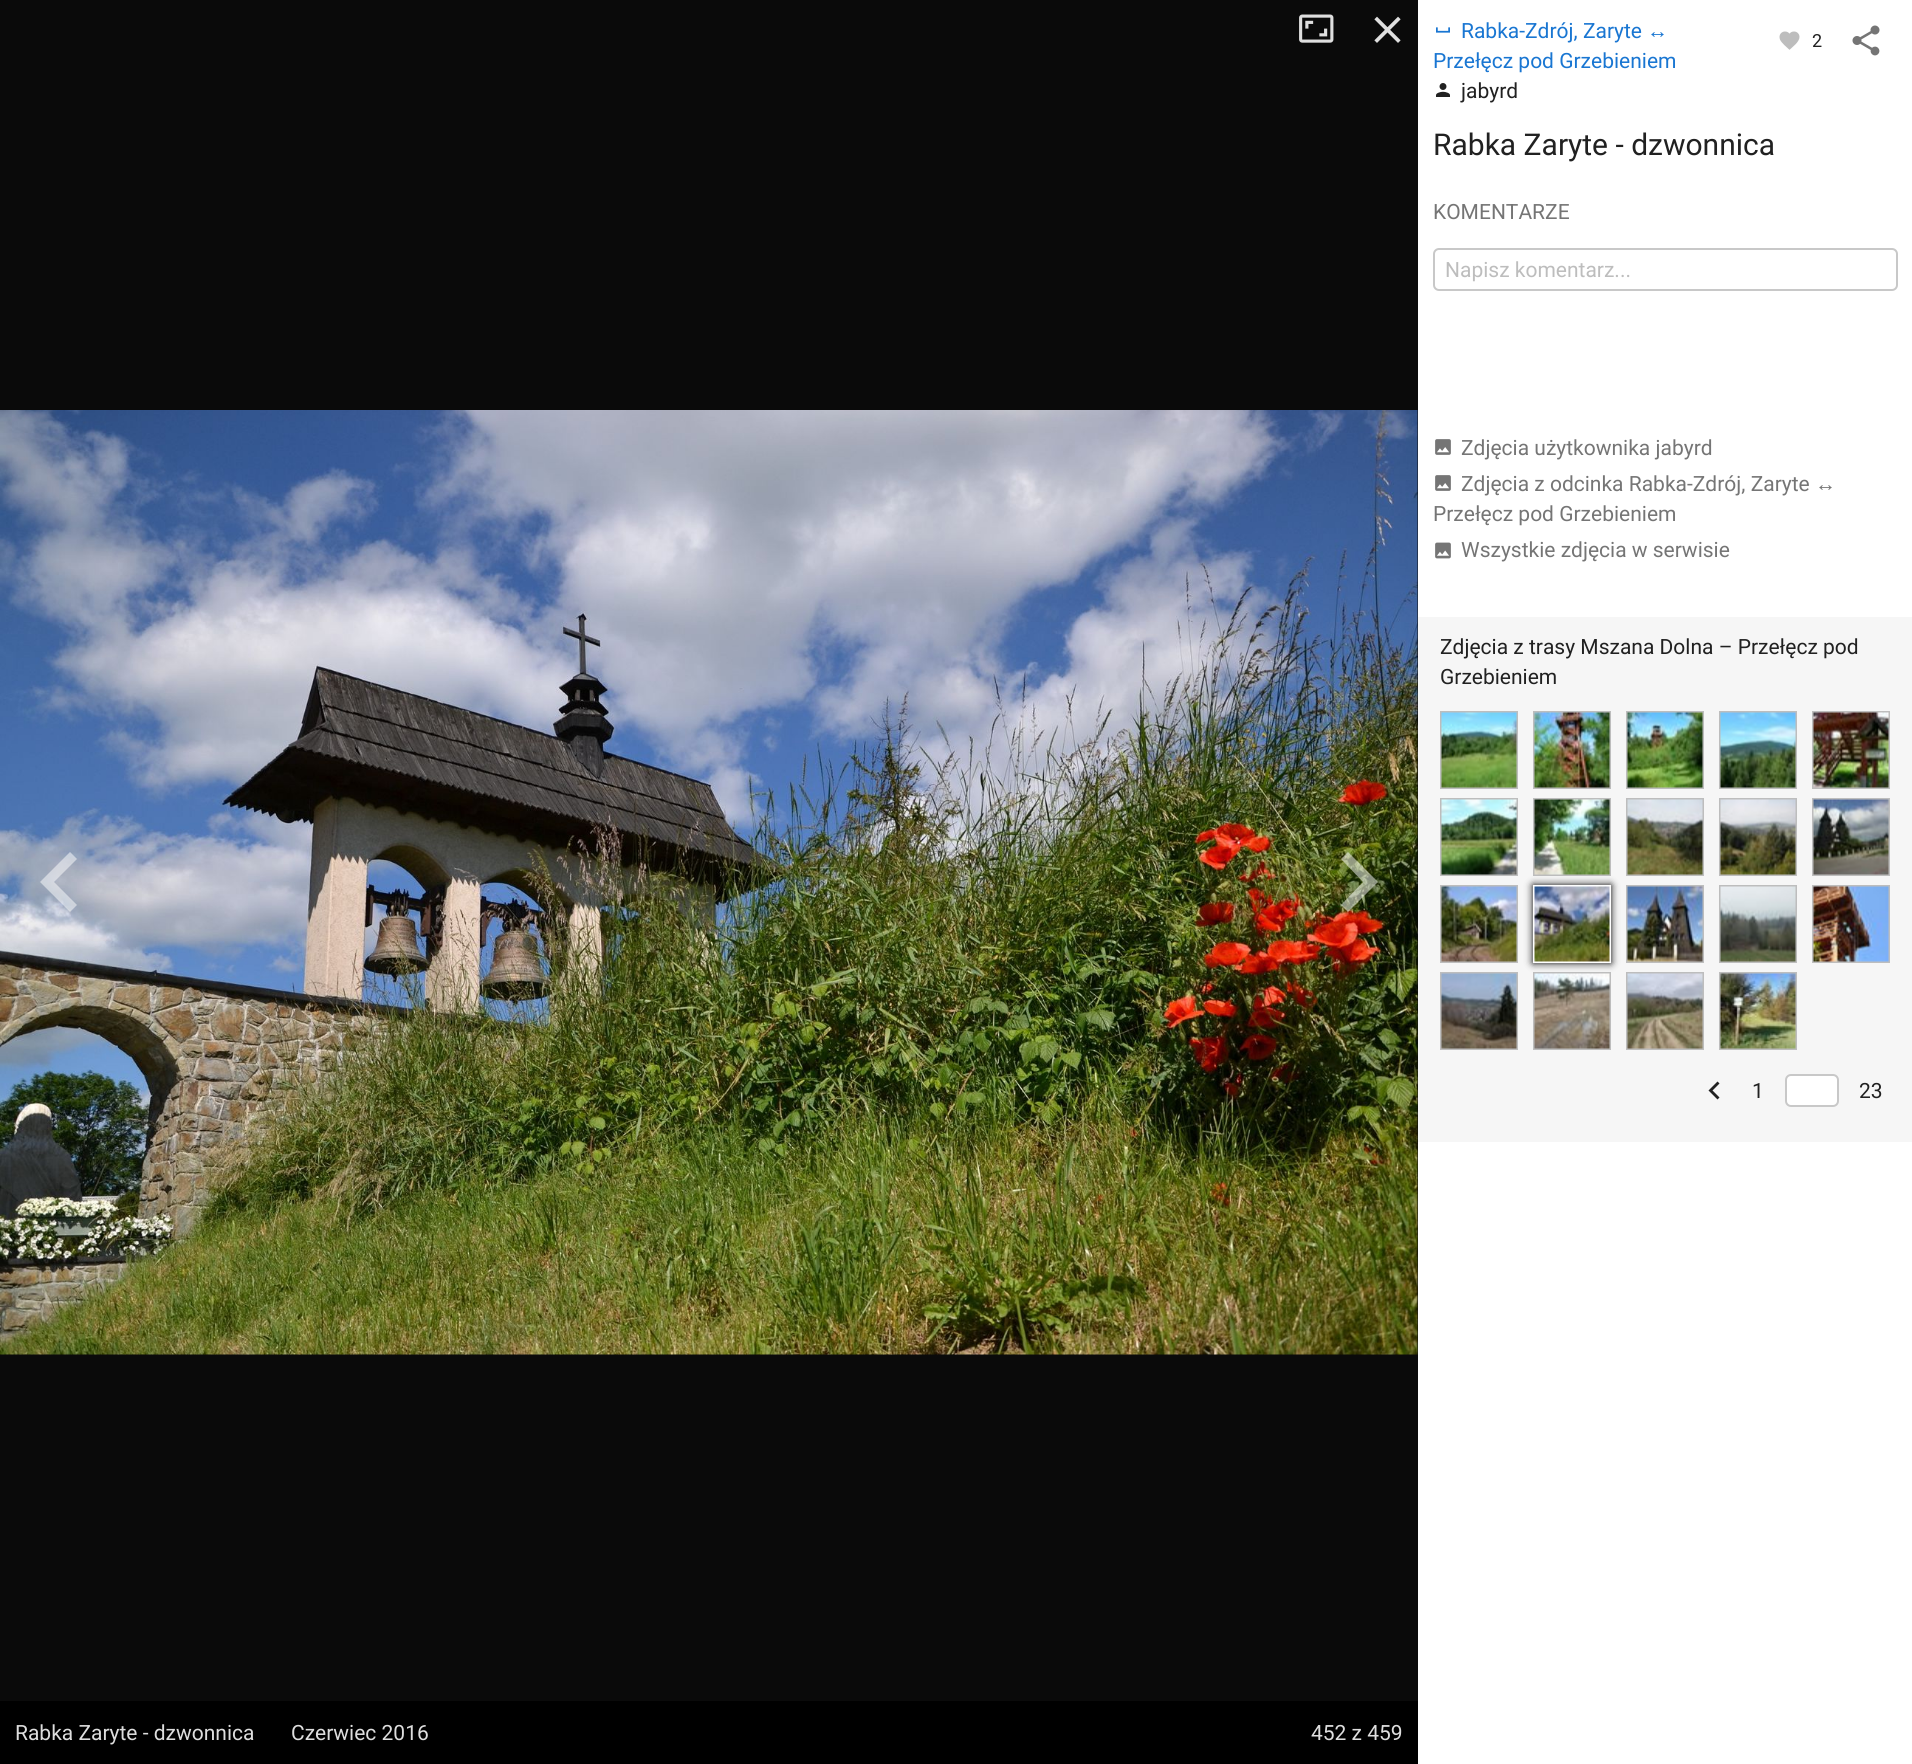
import math
import cairocffi as cairo

surface = cairo.ImageSurface(cairo.FORMAT_RGB24, 1912, 1764)
cr = cairo.Context(surface)
options = cairo.FontOptions()
options.set_hint_metrics(cairo.HINT_METRICS_OFF)
options.set_hint_style(cairo.HINT_STYLE_NONE)
cr.set_font_options(options)
cr.set_miter_limit(4)


def use_color(code):
    cr.set_source_rgb(*(v / 255 for v in bytes.fromhex(code[-6:])))


def round_rect(x, y, w, h, r):
    cr.new_sub_path()
    for i, (u, v) in enumerate([(x + w - r, y + h - r), (x + r, y + h - r), (x + r, y + r), (x + w - r, y + r)]):
        cr.arc(u, v, r, i * math.pi / 2, (i + 1) * math.pi / 2)
    cr.close_path()


def shadow(x, y, w, h, r, blur, alpha):
    cr.push_group_with_content(cairo.CONTENT_ALPHA)
    cr.set_operator(cairo.OPERATOR_SOURCE)
    for i in range(15, -16, -2):
        e = blur * i / 6
        if min(w, h) + 2 * e > 0:
            cr.set_source_rgba(0, 0, 0, alpha * math.erfc((i - 1) / 8.5) / 2)
            round_rect(x - e, y - e, w + 2 * e, h + 2 * e, max(0, min(r + e + blur * .6, min(w, h) / 2 + e)))
            cr.fill()
    cr.mask(cr.pop_group())


def picture(path, x, y, w, h):
    cr.save()
    cr.set_source_surface(cairo.ImageSurface.create_from_png(path), x, y)
    cr.rectangle(x, y, w, h)
    cr.fill()
    cr.restore()


use_color("#0a0a0a")
cr.paint()
use_color("#ffffff")
cr.rectangle(1418, 0, 494, 1764)
cr.fill()
picture("img1.png", 1436, 27, 14, 6)
cr.select_font_face("Roboto")
cr.set_font_size(21)
use_color("#1976d2")
cr.move_to(1461, 38)
cr.show_text("Rabka-Zdrój, Zaryte")
cr.select_font_face("Liberation Sans")
cr.move_to(1647, 38)
cr.show_text("↔")
cr.select_font_face("Roboto")
cr.move_to(1433, 68)
cr.show_text("Przełęcz pod Grzebieniem")
picture("img2.png", 1436, 83, 14, 14)
use_color("#212121")
cr.move_to(1461, 98)
cr.show_text("jabyrd")
picture("img3.png", 1779, 31, 21, 19)
cr.set_font_size(18)
cr.move_to(1812, 47)
cr.show_text("2")
picture("img4.png", 1852, 25, 28, 31)
cr.set_font_size(30)
cr.move_to(1433, 155)
cr.show_text("Rabka Zaryte - dzwonnica")
cr.set_font_size(21)
use_color("#757575")
cr.move_to(1433, 219)
cr.show_text("KOMENTARZE")
round_rect(1434, 249, 463, 41, 5)
use_color("#c8c8c8")
cr.stroke()
use_color("#bdbdbd")
cr.move_to(1445, 277)
cr.show_text("Napisz komentarz...")
picture("img5.png", 1435, 439, 16, 16)
use_color("#757575")
cr.move_to(1461, 455)
cr.show_text("Zdjęcia użytkownika jabyrd")
picture("img5.png", 1435, 475, 16, 16)
cr.move_to(1461, 491)
cr.show_text("Zdjęcia z odcinka Rabka-Zdrój, Zaryte")
cr.select_font_face("Liberation Sans")
cr.move_to(1815, 491)
cr.show_text("↔")
cr.select_font_face("Roboto")
cr.move_to(1433, 521)
cr.show_text("Przełęcz pod Grzebieniem")
picture("img6.png", 1435, 542, 16, 17)
cr.move_to(1461, 557)
cr.show_text("Wszystkie zdjęcia w serwisie")
use_color("#f6f6f6")
cr.rectangle(1418, 617, 494, 525)
cr.fill()
use_color("#212121")
cr.move_to(1440, 654)
cr.show_text("Zdjęcia z trasy Mszana Dolna – Przełęcz pod")
cr.move_to(1440, 684)
cr.show_text("Grzebieniem")
cr.rectangle(1441, 712, 76, 76)
use_color("#bdbdbd")
cr.stroke()
picture("img7.png", 1441, 712, 76, 76)
cr.rectangle(1534, 712, 76, 76)
cr.stroke()
picture("img8.png", 1534, 712, 76, 76)
cr.rectangle(1627, 712, 76, 76)
cr.stroke()
picture("img9.png", 1627, 712, 76, 76)
cr.rectangle(1720, 712, 76, 76)
cr.stroke()
picture("img10.png", 1720, 712, 76, 76)
cr.rectangle(1813, 712, 76, 76)
cr.stroke()
picture("img11.png", 1813, 712, 76, 76)
cr.rectangle(1441, 799, 76, 76)
cr.stroke()
picture("img12.png", 1441, 799, 76, 76)
cr.rectangle(1534, 799, 76, 76)
cr.stroke()
picture("img13.png", 1534, 799, 76, 76)
cr.rectangle(1627, 799, 76, 76)
cr.stroke()
picture("img14.png", 1627, 799, 76, 76)
cr.rectangle(1720, 799, 76, 76)
cr.stroke()
picture("img15.png", 1720, 799, 76, 76)
cr.rectangle(1813, 799, 76, 76)
cr.stroke()
picture("img16.png", 1813, 799, 76, 76)
cr.rectangle(1441, 886, 76, 76)
cr.stroke()
picture("img17.png", 1441, 886, 76, 76)
use_color("#000000")
shadow(1533, 885, 78, 78, 0, 4, 1)
cr.rectangle(1534, 886, 76, 76)
use_color("#ffffff")
cr.stroke()
picture("img18.png", 1534, 886, 76, 76)
cr.rectangle(1627, 886, 76, 76)
use_color("#bdbdbd")
cr.stroke()
picture("img19.png", 1627, 886, 76, 76)
cr.rectangle(1720, 886, 76, 76)
cr.stroke()
picture("img20.png", 1720, 886, 76, 76)
cr.rectangle(1813, 886, 76, 76)
cr.stroke()
picture("img21.png", 1813, 886, 76, 76)
cr.rectangle(1441, 973, 76, 76)
cr.stroke()
picture("img22.png", 1441, 973, 76, 76)
cr.rectangle(1534, 973, 76, 76)
cr.stroke()
picture("img23.png", 1534, 973, 76, 76)
cr.rectangle(1627, 973, 76, 76)
cr.stroke()
picture("img24.png", 1627, 973, 76, 76)
cr.rectangle(1720, 973, 76, 76)
cr.stroke()
picture("img25.png", 1720, 973, 76, 76)
use_color("#212121")
cr.new_path()
cr.move_to(1719.5, 1097.5)
cr.line_to(1717.5, 1099.5)
cr.line_to(1708.5, 1090.5)
cr.line_to(1717.5, 1081.5)
cr.line_to(1719.5, 1083.5)
cr.line_to(1712.5, 1090.5)
cr.close_path()
cr.fill()
cr.move_to(1752, 1098)
cr.show_text("1")
use_color("#ffffff")
round_rect(1786, 1075, 52, 31, 5)
cr.fill_preserve()
use_color("#c8c8c8")
cr.stroke()
use_color("#212121")
cr.move_to(1859, 1098)
cr.show_text("23")
picture("img26.png", 1299, 14, 35, 29)
picture("img27.png", 1374, 16, 27, 27)
picture("img28.png", 0, 410, 1418, 945)
cr.set_source_rgba(1, 1, 1, 0.5)
cr.new_path()
cr.move_to(77, 859)
cr.line_to(70, 852)
cr.line_to(40, 882)
cr.line_to(70, 912)
cr.line_to(77, 905)
cr.line_to(54, 882)
cr.close_path()
cr.fill()
cr.new_path()
cr.move_to(1348, 852)
cr.line_to(1341, 859)
cr.line_to(1363, 882)
cr.line_to(1341, 905)
cr.line_to(1348, 912)
cr.line_to(1378, 882)
cr.close_path()
cr.fill()
use_color("#000000")
cr.rectangle(0, 1701, 1418, 63)
cr.fill()
use_color("#dedede")
cr.move_to(15, 1740)
cr.show_text("Rabka Zaryte - dzwonnica")
cr.move_to(291, 1740)
cr.show_text("Czerwiec 2016")
cr.move_to(1311, 1740)
cr.show_text("452 z 459")
surface.write_to_png("result.png")
